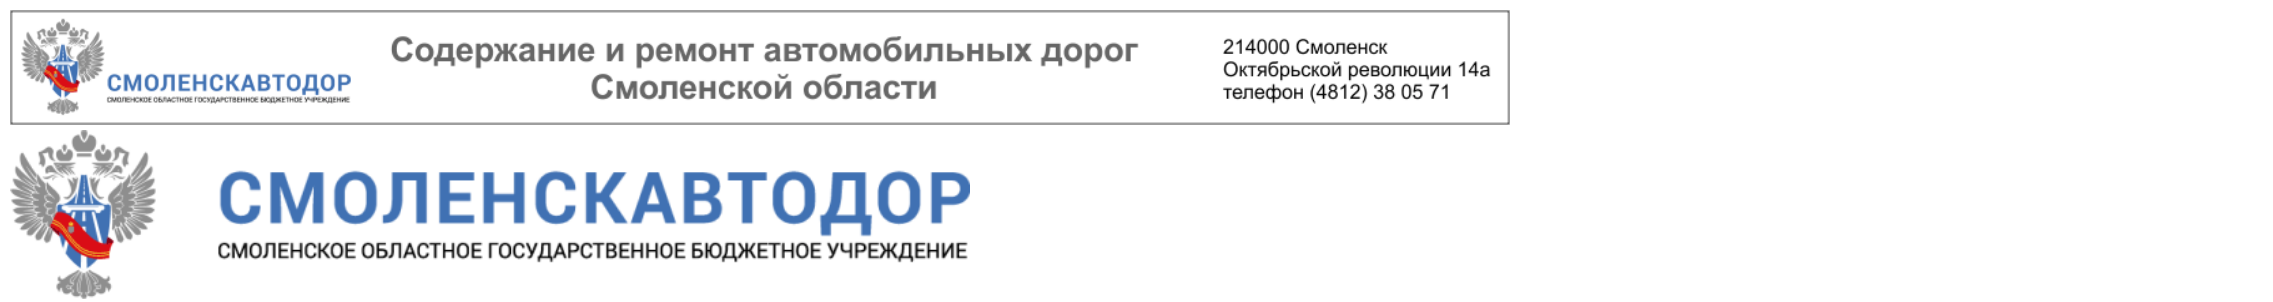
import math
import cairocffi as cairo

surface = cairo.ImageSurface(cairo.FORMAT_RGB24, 2273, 302)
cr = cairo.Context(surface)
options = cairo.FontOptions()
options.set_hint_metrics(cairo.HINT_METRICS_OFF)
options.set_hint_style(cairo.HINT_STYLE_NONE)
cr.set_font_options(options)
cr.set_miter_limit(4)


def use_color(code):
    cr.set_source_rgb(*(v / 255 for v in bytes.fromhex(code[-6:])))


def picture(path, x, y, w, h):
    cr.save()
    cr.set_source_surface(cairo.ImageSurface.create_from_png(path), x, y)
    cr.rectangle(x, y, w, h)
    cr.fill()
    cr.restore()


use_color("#ffffff")
cr.paint()
picture("img1.png", 10, 10, 1500, 115)
picture("img2.png", 10, 130, 960, 169)
surface.write_to_png("result.png")
